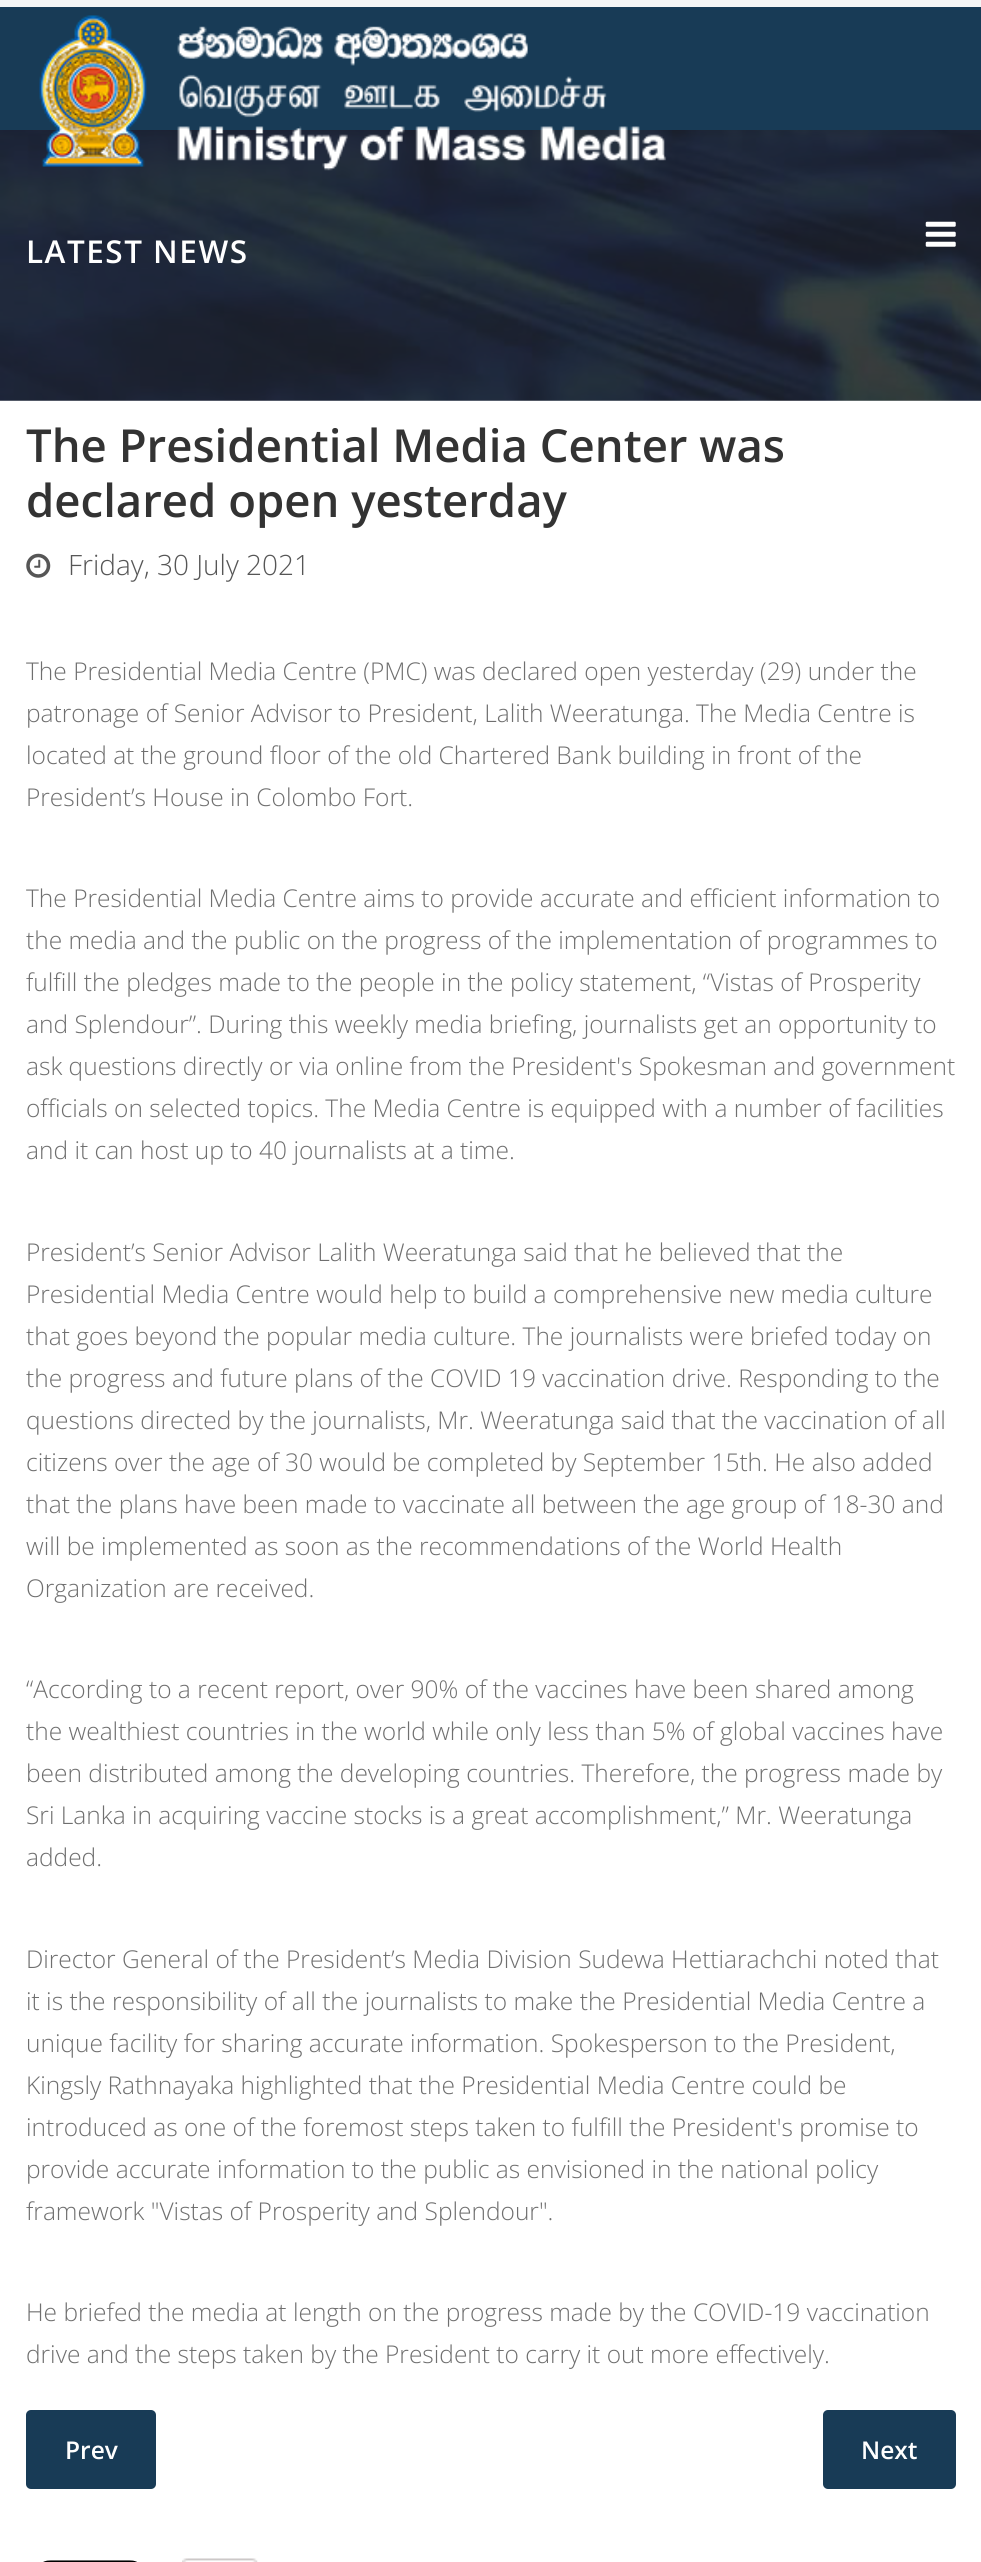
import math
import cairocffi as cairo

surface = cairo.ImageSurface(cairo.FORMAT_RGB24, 981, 2562)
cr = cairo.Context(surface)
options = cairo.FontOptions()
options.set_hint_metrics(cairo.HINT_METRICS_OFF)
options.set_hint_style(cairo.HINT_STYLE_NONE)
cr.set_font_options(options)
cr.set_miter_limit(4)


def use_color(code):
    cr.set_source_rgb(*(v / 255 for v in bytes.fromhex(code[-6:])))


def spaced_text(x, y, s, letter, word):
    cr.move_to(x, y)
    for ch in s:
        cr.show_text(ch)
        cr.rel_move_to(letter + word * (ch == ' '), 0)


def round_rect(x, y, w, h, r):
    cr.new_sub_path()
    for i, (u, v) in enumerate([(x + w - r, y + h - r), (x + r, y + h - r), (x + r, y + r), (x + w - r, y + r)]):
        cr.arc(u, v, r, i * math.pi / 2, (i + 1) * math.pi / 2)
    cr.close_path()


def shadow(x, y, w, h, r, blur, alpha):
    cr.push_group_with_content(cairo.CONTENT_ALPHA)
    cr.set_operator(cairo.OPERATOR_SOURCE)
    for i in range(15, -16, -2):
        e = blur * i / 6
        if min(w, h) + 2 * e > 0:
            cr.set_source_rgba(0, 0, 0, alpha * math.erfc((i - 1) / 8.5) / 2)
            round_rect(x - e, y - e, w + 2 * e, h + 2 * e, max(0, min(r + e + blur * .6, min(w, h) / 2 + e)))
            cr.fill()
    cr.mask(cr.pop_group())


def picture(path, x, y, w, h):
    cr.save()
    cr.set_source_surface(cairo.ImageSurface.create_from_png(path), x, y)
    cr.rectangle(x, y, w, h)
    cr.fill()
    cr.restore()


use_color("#ffffff")
cr.paint()
use_color("#f5f5f5")
cr.rectangle(0, 0, 981, 7)
cr.fill()
picture("img3.png", 0, 130, 981, 271)
use_color("#000000")
shadow(0, 12, 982, 123, 0, 2.5, 0.05)
use_color("#183b56")
cr.rectangle(0, 7, 981, 123)
cr.fill()
picture("img1.png", 39, 15, 628, 156)
picture("img2.png", 925, 221, 31, 26)
cr.select_font_face("Open Sans SemiBold")
cr.set_font_size(31.5)
use_color("#ffffff")
spaced_text(26, 263, "LATEST NEWS", 1.5, 0)
cr.set_font_size(45.5)
use_color("#333333")
cr.move_to(26, 462)
cr.show_text("The Presidential Media Center was")
cr.move_to(26, 517)
cr.show_text("declared open yesterday")
picture("img4.png", 26, 553, 25, 25)
cr.select_font_face("Open Sans Light")
cr.set_font_size(28)
use_color("#565656")
cr.move_to(68, 575)
cr.show_text("Friday, 30 July 2021")
cr.set_font_size(24.5)
use_color("#6f6f6f")
cr.move_to(26, 680)
cr.show_text("The Presidential Media Centre (PMC) was declared open yesterday (29) under the")
cr.move_to(26, 722)
cr.show_text("patronage of Senior Advisor to President, Lalith Weeratunga. The Media Centre is")
cr.move_to(26, 764)
cr.show_text("located at the ground floor of the old Chartered Bank building in front of the")
cr.move_to(26, 806)
cr.show_text("President’s House in Colombo Fort.")
cr.move_to(26, 907)
cr.show_text("The Presidential Media Centre aims to provide accurate and efficient information to")
cr.move_to(26, 949)
cr.show_text("the media and the public on the progress of the implementation of programmes to")
cr.move_to(26, 991)
cr.show_text("fulfill the pledges made to the people in the policy statement, “Vistas of Prosperity")
cr.move_to(26, 1033)
cr.show_text("and Splendour”. During this weekly media briefing, journalists get an opportunity to")
cr.move_to(26, 1075)
cr.show_text("ask questions directly or via online from the President's Spokesman and government")
cr.move_to(26, 1117)
cr.show_text("officials on selected topics. The Media Centre is equipped with a number of facilities")
cr.move_to(26, 1159)
cr.show_text("and it can host up to 40 journalists at a time.")
cr.move_to(26, 1261)
cr.show_text("President’s Senior Advisor Lalith Weeratunga said that he believed that the")
cr.move_to(26, 1303)
cr.show_text("Presidential Media Centre would help to build a comprehensive new media culture")
cr.move_to(26, 1345)
cr.show_text("that goes beyond the popular media culture. The journalists were briefed today on")
cr.move_to(26, 1387)
cr.show_text("the progress and future plans of the COVID 19 vaccination drive. Responding to the")
cr.move_to(26, 1429)
cr.show_text("questions directed by the journalists, Mr. Weeratunga said that the vaccination of all")
cr.move_to(26, 1471)
cr.show_text("citizens over the age of 30 would be completed by September 15th. He also added")
cr.move_to(26, 1513)
cr.show_text("that the plans have been made to vaccinate all between the age group of 18-30 and")
cr.move_to(26, 1555)
cr.show_text("will be implemented as soon as the recommendations of the World Health")
cr.move_to(26, 1597)
cr.show_text("Organization are received.")
cr.move_to(26, 1698)
cr.show_text("“According to a recent report, over 90% of the vaccines have been shared among")
cr.move_to(26, 1740)
cr.show_text("the wealthiest countries in the world while only less than 5% of global vaccines have")
cr.move_to(26, 1782)
cr.show_text("been distributed among the developing countries. Therefore, the progress made by")
cr.move_to(26, 1824)
cr.show_text("Sri Lanka in acquiring vaccine stocks is a great accomplishment,” Mr. Weeratunga")
cr.move_to(26, 1866)
cr.show_text("added.")
cr.move_to(26, 1968)
cr.show_text("Director General of the President’s Media Division Sudewa Hettiarachchi noted that")
cr.move_to(26, 2010)
cr.show_text("it is the responsibility of all the journalists to make the Presidential Media Centre a")
cr.move_to(26, 2052)
cr.show_text("unique facility for sharing accurate information. Spokesperson to the President,")
cr.move_to(26, 2094)
cr.show_text("Kingsly Rathnayaka highlighted that the Presidential Media Centre could be")
cr.move_to(26, 2136)
cr.show_text("introduced as one of the foremost steps taken to fulfill the President's promise to")
cr.move_to(26, 2178)
cr.show_text("provide accurate information to the public as envisioned in the national policy")
cr.move_to(26, 2220)
cr.show_text("framework \"Vistas of Prosperity and Splendour\".")
cr.move_to(26, 2321)
cr.show_text("He briefed the media at length on the progress made by the COVID-19 vaccination")
cr.move_to(26, 2363)
cr.show_text("drive and the steps taken by the President to carry it out more effectively.")
use_color("#183b56")
round_rect(26, 2410, 130, 79, 5)
cr.fill()
cr.select_font_face("Open Sans SemiBold")
use_color("#ffffff")
cr.move_to(65, 2459)
cr.show_text("Prev")
use_color("#183b56")
round_rect(823, 2410, 133, 79, 5)
cr.fill()
use_color("#ffffff")
cr.move_to(861, 2459)
cr.show_text("Next")
picture("img5.png", 43, 2560, 94, 2)
picture("img6.png", 182, 2558, 76, 4)
surface.write_to_png("result.png")
